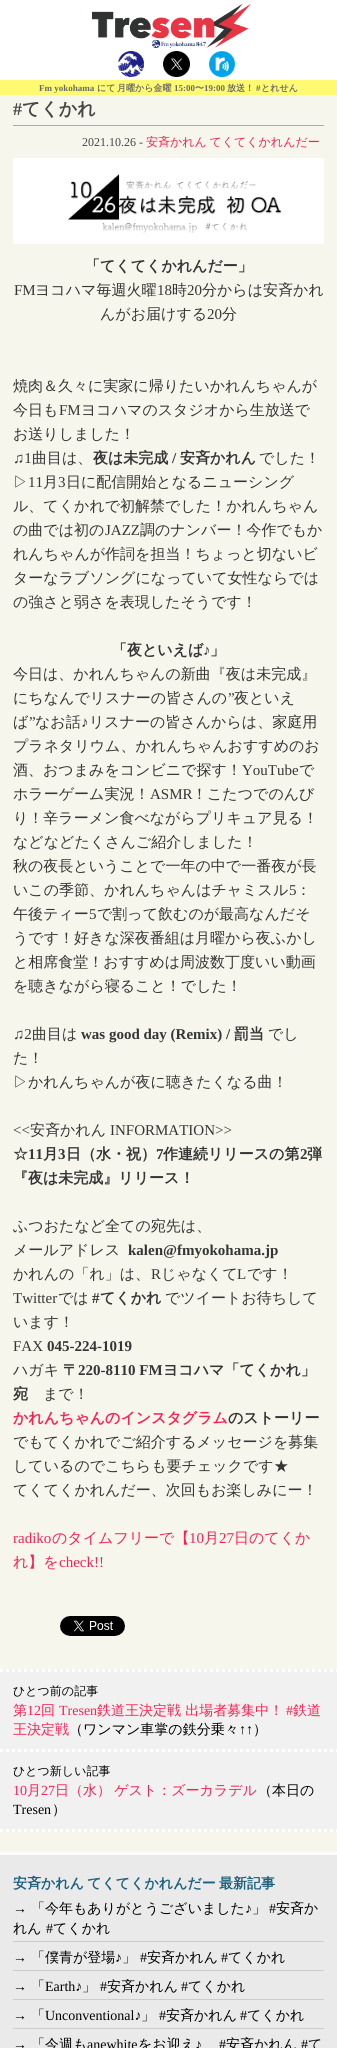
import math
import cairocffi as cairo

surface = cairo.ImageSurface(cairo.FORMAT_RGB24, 337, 2048)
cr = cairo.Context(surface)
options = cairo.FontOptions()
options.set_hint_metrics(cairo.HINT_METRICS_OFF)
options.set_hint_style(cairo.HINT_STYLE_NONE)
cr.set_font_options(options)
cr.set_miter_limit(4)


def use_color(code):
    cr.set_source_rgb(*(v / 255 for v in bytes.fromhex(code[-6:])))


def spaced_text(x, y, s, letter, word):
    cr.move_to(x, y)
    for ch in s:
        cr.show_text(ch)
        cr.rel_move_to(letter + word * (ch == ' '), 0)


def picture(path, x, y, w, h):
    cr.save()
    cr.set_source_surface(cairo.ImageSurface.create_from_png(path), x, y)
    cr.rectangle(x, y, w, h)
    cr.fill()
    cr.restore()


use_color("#f7f6ed")
cr.paint()
use_color("#ffffff")
cr.rectangle(0, 0, 337, 80)
cr.fill()
picture("img1.png", 92, 3, 159, 45)
picture("img2.png", 118, 51, 26, 26)
picture("img3.png", 163, 51, 27, 26)
picture("img4.png", 209, 51, 26, 26)
use_color("#fffa71")
cr.rectangle(0, 80, 337, 15)
cr.fill()
cr.select_font_face("Liberation Serif", cairo.FONT_SLANT_NORMAL, cairo.FONT_WEIGHT_BOLD)
cr.set_font_size(9)
use_color("#6a6a6a")
cr.move_to(39, 91)
cr.show_text("Fm yokohama")
cr.select_font_face("WenQuanYi Zen Hei", cairo.FONT_SLANT_NORMAL, cairo.FONT_WEIGHT_BOLD)
cr.move_to(97, 91)
cr.show_text("にて")
cr.move_to(117, 91)
cr.show_text("月曜から金曜")
cr.select_font_face("Liberation Serif", cairo.FONT_SLANT_NORMAL, cairo.FONT_WEIGHT_BOLD)
cr.move_to(174, 91)
cr.show_text("15:00")
cr.select_font_face("WenQuanYi Zen Hei", cairo.FONT_SLANT_NORMAL, cairo.FONT_WEIGHT_BOLD)
cr.move_to(195, 91)
cr.show_text("〜")
cr.select_font_face("Liberation Serif", cairo.FONT_SLANT_NORMAL, cairo.FONT_WEIGHT_BOLD)
cr.move_to(204, 91)
cr.show_text("19:00")
cr.select_font_face("WenQuanYi Zen Hei", cairo.FONT_SLANT_NORMAL, cairo.FONT_WEIGHT_BOLD)
cr.move_to(227, 91)
cr.show_text("放送！")
cr.select_font_face("Liberation Serif", cairo.FONT_SLANT_NORMAL, cairo.FONT_WEIGHT_BOLD)
cr.move_to(256, 91)
cr.show_text("#")
cr.select_font_face("WenQuanYi Zen Hei", cairo.FONT_SLANT_NORMAL, cairo.FONT_WEIGHT_BOLD)
cr.move_to(261, 91)
cr.show_text("とれせん")
use_color("#aaaaaa")
cr.rectangle(13, 125, 311, 1)
cr.fill()
cr.select_font_face("Liberation Serif", cairo.FONT_SLANT_NORMAL, cairo.FONT_WEIGHT_BOLD)
cr.set_font_size(18)
use_color("#464646")
cr.move_to(13, 115)
cr.show_text("#")
cr.select_font_face("WenQuanYi Zen Hei", cairo.FONT_SLANT_NORMAL, cairo.FONT_WEIGHT_BOLD)
cr.move_to(22, 115)
cr.show_text("てくかれ")
cr.select_font_face("Liberation Serif")
cr.set_font_size(12)
cr.move_to(82, 146)
cr.show_text("2021.10.26 -")
cr.select_font_face("WenQuanYi Zen Hei Medium")
use_color("#ff1f4f")
spaced_text(146, 146, "安斉かれん てくてくかれんだー", 0, -1)
picture("img5.png", 13, 158, 311, 86)
cr.select_font_face("WenQuanYi Zen Hei", cairo.FONT_SLANT_NORMAL, cairo.FONT_WEIGHT_BOLD)
cr.set_font_size(15)
use_color("#353535")
cr.move_to(85, 271)
cr.show_text("「てくてくかれんだー」")
cr.select_font_face("Liberation Serif")
cr.move_to(14, 295)
cr.show_text("FM")
cr.select_font_face("WenQuanYi Zen Hei Medium")
cr.move_to(35, 295)
cr.show_text("ヨコハマ毎週火曜")
cr.select_font_face("Liberation Serif")
cr.move_to(157, 295)
cr.show_text("18")
cr.select_font_face("WenQuanYi Zen Hei Medium")
cr.move_to(172, 295)
cr.show_text("時")
cr.select_font_face("Liberation Serif")
cr.move_to(187, 295)
cr.show_text("20")
cr.select_font_face("WenQuanYi Zen Hei Medium")
cr.move_to(202, 295)
cr.show_text("分からは安斉かれ")
cr.move_to(100, 319)
cr.show_text("んがお届けする")
cr.select_font_face("Liberation Serif")
cr.move_to(207, 319)
cr.show_text("20")
cr.select_font_face("WenQuanYi Zen Hei Medium")
cr.move_to(222, 319)
cr.show_text("分")
cr.move_to(13, 391)
cr.show_text("焼肉＆久々に実家に帰りたいかれんちゃんが")
cr.move_to(13, 415)
cr.show_text("今日も")
cr.select_font_face("Liberation Serif")
cr.move_to(59, 415)
cr.show_text("FM")
cr.select_font_face("WenQuanYi Zen Hei Medium")
cr.move_to(81, 415)
cr.show_text("ヨコハマのスタジオから生放送で")
cr.move_to(13, 439)
cr.show_text("お送りしました！")
cr.select_font_face("Liberation Serif")
cr.move_to(13, 463)
cr.show_text("♫1")
cr.select_font_face("WenQuanYi Zen Hei Medium")
cr.move_to(32, 463)
cr.show_text("曲目は、")
cr.select_font_face("WenQuanYi Zen Hei", cairo.FONT_SLANT_NORMAL, cairo.FONT_WEIGHT_BOLD)
cr.move_to(93, 463)
cr.show_text("夜は未完成")
cr.select_font_face("Liberation Serif", cairo.FONT_SLANT_NORMAL, cairo.FONT_WEIGHT_BOLD)
cr.move_to(172, 463)
cr.show_text("/")
cr.select_font_face("WenQuanYi Zen Hei", cairo.FONT_SLANT_NORMAL, cairo.FONT_WEIGHT_BOLD)
cr.move_to(180, 463)
cr.show_text("安斉かれん")
cr.select_font_face("WenQuanYi Zen Hei Medium")
cr.move_to(259, 463)
cr.show_text("でした！")
cr.move_to(13, 487)
cr.show_text("▷")
cr.select_font_face("Liberation Serif")
cr.move_to(28, 487)
cr.show_text("11")
cr.select_font_face("WenQuanYi Zen Hei Medium")
cr.move_to(43, 487)
cr.show_text("月")
cr.select_font_face("Liberation Serif")
cr.move_to(58, 487)
cr.show_text("3")
cr.select_font_face("WenQuanYi Zen Hei Medium")
cr.move_to(66, 487)
cr.show_text("日に配信開始となるニューシング")
cr.move_to(13, 511)
cr.show_text("ル、てくかれで初解禁でした！かれんちゃん")
cr.move_to(13, 535)
cr.show_text("の曲では初の")
cr.select_font_face("Liberation Serif")
cr.move_to(105, 535)
cr.show_text("JAZZ")
cr.select_font_face("WenQuanYi Zen Hei Medium")
cr.move_to(140, 535)
cr.show_text("調のナンバー！今作でもか")
cr.move_to(13, 559)
cr.show_text("れんちゃんが作詞を担当！ちょっと切ないビ")
cr.move_to(13, 583)
cr.show_text("ターなラブソングになっていて女性ならでは")
cr.move_to(13, 607)
cr.show_text("の強さと弱さを表現したそうです！")
cr.select_font_face("WenQuanYi Zen Hei", cairo.FONT_SLANT_NORMAL, cairo.FONT_WEIGHT_BOLD)
cr.move_to(112, 655)
cr.show_text("「夜といえば")
cr.select_font_face("Liberation Serif", cairo.FONT_SLANT_NORMAL, cairo.FONT_WEIGHT_BOLD)
cr.move_to(203, 655)
cr.show_text("♪")
cr.select_font_face("WenQuanYi Zen Hei", cairo.FONT_SLANT_NORMAL, cairo.FONT_WEIGHT_BOLD)
cr.move_to(210, 655)
cr.show_text("」")
cr.select_font_face("WenQuanYi Zen Hei Medium")
cr.move_to(13, 679)
cr.show_text("今日は、かれんちゃんの新曲『夜は未完成』")
cr.move_to(13, 703)
cr.show_text("にちなんでリスナーの皆さんの")
cr.select_font_face("Liberation Serif")
cr.move_to(228, 703)
cr.show_text("”")
cr.select_font_face("WenQuanYi Zen Hei Medium")
cr.move_to(234, 703)
cr.show_text("夜といえ")
cr.move_to(13, 727)
cr.show_text("ば")
cr.select_font_face("Liberation Serif")
cr.move_to(29, 727)
cr.show_text("”")
cr.select_font_face("WenQuanYi Zen Hei Medium")
cr.move_to(35, 727)
cr.show_text("なお話")
cr.select_font_face("Liberation Serif")
cr.move_to(81, 727)
cr.show_text("♪")
cr.select_font_face("WenQuanYi Zen Hei Medium")
cr.move_to(89, 727)
cr.show_text("リスナーの皆さんからは、家庭用")
cr.move_to(13, 751)
cr.show_text("プラネタリウム、かれんちゃんおすすめのお")
cr.move_to(13, 775)
cr.show_text("酒、おつまみをコンビニで探す！")
cr.select_font_face("Liberation Serif")
cr.move_to(242, 775)
cr.show_text("YouTube")
cr.select_font_face("WenQuanYi Zen Hei Medium")
cr.move_to(299, 775)
cr.show_text("で")
cr.move_to(13, 799)
cr.show_text("ホラーゲーム実況！")
cr.select_font_face("Liberation Serif")
cr.move_to(150, 799)
cr.show_text("ASMR")
cr.select_font_face("WenQuanYi Zen Hei Medium")
cr.move_to(192, 799)
cr.show_text("！こたつでのんび")
cr.move_to(13, 823)
cr.show_text("り！辛ラーメン食べながらプリキュア見る！")
cr.move_to(13, 847)
cr.show_text("などなどたくさんご紹介しました！")
cr.move_to(13, 871)
cr.show_text("秋の夜長ということで一年の中で一番夜が長")
cr.move_to(13, 895)
cr.show_text("いこの季節、かれんちゃんはチャミスル")
cr.select_font_face("Liberation Serif")
cr.move_to(289, 895)
cr.show_text("5")
cr.select_font_face("WenQuanYi Zen Hei Medium")
cr.move_to(296, 895)
cr.show_text("：")
cr.move_to(13, 919)
cr.show_text("午後ティー")
cr.select_font_face("Liberation Serif")
cr.move_to(89, 919)
cr.show_text("5")
cr.select_font_face("WenQuanYi Zen Hei Medium")
cr.move_to(97, 919)
cr.show_text("で割って飲むのが最高なんだそ")
cr.move_to(13, 943)
cr.show_text("うです！好きな深夜番組は月曜から夜ふかし")
cr.move_to(13, 967)
cr.show_text("と相席食堂！おすすめは周波数丁度いい動画")
cr.move_to(13, 991)
cr.show_text("を聴きながら寝ること！でした！")
cr.select_font_face("Liberation Serif")
cr.move_to(13, 1039)
cr.show_text("♫2")
cr.select_font_face("WenQuanYi Zen Hei Medium")
cr.move_to(32, 1039)
cr.show_text("曲目は")
cr.select_font_face("Liberation Serif", cairo.FONT_SLANT_NORMAL, cairo.FONT_WEIGHT_BOLD)
cr.move_to(81, 1039)
cr.show_text("was good day (Remix) /")
cr.select_font_face("WenQuanYi Zen Hei", cairo.FONT_SLANT_NORMAL, cairo.FONT_WEIGHT_BOLD)
cr.move_to(234, 1039)
cr.show_text("罰当")
cr.select_font_face("WenQuanYi Zen Hei Medium")
cr.move_to(268, 1039)
cr.show_text("でし")
cr.move_to(13, 1063)
cr.show_text("た！")
cr.move_to(13, 1087)
cr.show_text("▷かれんちゃんが夜に聴きたくなる曲！")
cr.select_font_face("Liberation Serif")
cr.move_to(13, 1135)
cr.show_text("<<")
cr.select_font_face("WenQuanYi Zen Hei Medium")
cr.move_to(30, 1135)
cr.show_text("安斉かれん")
cr.select_font_face("Liberation Serif")
cr.move_to(110, 1135)
cr.show_text("INFORMATION>>")
cr.select_font_face("WenQuanYi Zen Hei", cairo.FONT_SLANT_NORMAL, cairo.FONT_WEIGHT_BOLD)
cr.move_to(13, 1159)
cr.show_text("☆")
cr.select_font_face("Liberation Serif", cairo.FONT_SLANT_NORMAL, cairo.FONT_WEIGHT_BOLD)
cr.move_to(28, 1159)
cr.show_text("11")
cr.select_font_face("WenQuanYi Zen Hei", cairo.FONT_SLANT_NORMAL, cairo.FONT_WEIGHT_BOLD)
cr.move_to(43, 1159)
cr.show_text("月")
cr.select_font_face("Liberation Serif", cairo.FONT_SLANT_NORMAL, cairo.FONT_WEIGHT_BOLD)
cr.move_to(58, 1159)
cr.show_text("3")
cr.select_font_face("WenQuanYi Zen Hei", cairo.FONT_SLANT_NORMAL, cairo.FONT_WEIGHT_BOLD)
cr.move_to(66, 1159)
cr.show_text("日（水・祝）")
cr.select_font_face("Liberation Serif", cairo.FONT_SLANT_NORMAL, cairo.FONT_WEIGHT_BOLD)
cr.move_to(156, 1159)
cr.show_text("7")
cr.select_font_face("WenQuanYi Zen Hei", cairo.FONT_SLANT_NORMAL, cairo.FONT_WEIGHT_BOLD)
cr.move_to(163, 1159)
cr.show_text("作連続リリースの第")
cr.select_font_face("Liberation Serif", cairo.FONT_SLANT_NORMAL, cairo.FONT_WEIGHT_BOLD)
cr.move_to(300, 1159)
cr.show_text("2")
cr.select_font_face("WenQuanYi Zen Hei", cairo.FONT_SLANT_NORMAL, cairo.FONT_WEIGHT_BOLD)
cr.move_to(307, 1159)
cr.show_text("弾")
cr.move_to(13, 1183)
cr.show_text("『夜は未完成』リリース！")
cr.select_font_face("WenQuanYi Zen Hei Medium")
cr.move_to(13, 1231)
cr.show_text("ふつおたなど全ての宛先は、")
cr.move_to(13, 1255)
cr.show_text("メールアドレス")
cr.select_font_face("Liberation Serif", cairo.FONT_SLANT_NORMAL, cairo.FONT_WEIGHT_BOLD)
cr.move_to(128, 1255)
cr.show_text("kalen@fmyokohama.jp")
cr.select_font_face("WenQuanYi Zen Hei Medium")
cr.move_to(13, 1279)
cr.show_text("かれんの「れ」は、")
cr.select_font_face("Liberation Serif")
cr.move_to(151, 1279)
cr.show_text("R")
cr.select_font_face("WenQuanYi Zen Hei Medium")
cr.move_to(161, 1279)
cr.show_text("じゃなくて")
cr.select_font_face("Liberation Serif")
cr.move_to(237, 1279)
cr.show_text("L")
cr.select_font_face("WenQuanYi Zen Hei Medium")
cr.move_to(247, 1279)
cr.show_text("です！")
cr.select_font_face("Liberation Serif")
cr.move_to(13, 1303)
cr.show_text("Twitter")
cr.select_font_face("WenQuanYi Zen Hei Medium")
cr.move_to(58, 1303)
cr.show_text("では")
cr.select_font_face("Liberation Serif", cairo.FONT_SLANT_NORMAL, cairo.FONT_WEIGHT_BOLD)
cr.move_to(92, 1303)
cr.show_text("#")
cr.select_font_face("WenQuanYi Zen Hei", cairo.FONT_SLANT_NORMAL, cairo.FONT_WEIGHT_BOLD)
cr.move_to(100, 1303)
cr.show_text("てくかれ")
cr.select_font_face("WenQuanYi Zen Hei Medium")
cr.move_to(165, 1303)
cr.show_text("でツイートお待ちして")
cr.move_to(13, 1327)
cr.show_text("います！")
cr.select_font_face("Liberation Serif")
cr.move_to(13, 1351)
cr.show_text("FAX")
cr.select_font_face("Liberation Serif", cairo.FONT_SLANT_NORMAL, cairo.FONT_WEIGHT_BOLD)
cr.move_to(47, 1351)
cr.show_text("045-224-1019")
cr.select_font_face("WenQuanYi Zen Hei Medium")
cr.move_to(13, 1375)
cr.show_text("ハガキ")
cr.select_font_face("WenQuanYi Zen Hei", cairo.FONT_SLANT_NORMAL, cairo.FONT_WEIGHT_BOLD)
cr.move_to(63, 1375)
cr.show_text("〒")
cr.select_font_face("Liberation Serif", cairo.FONT_SLANT_NORMAL, cairo.FONT_WEIGHT_BOLD)
cr.move_to(78, 1375)
cr.show_text("220-8110 FM")
cr.select_font_face("WenQuanYi Zen Hei", cairo.FONT_SLANT_NORMAL, cairo.FONT_WEIGHT_BOLD)
cr.move_to(163, 1375)
cr.show_text("ヨコハマ「てくかれ」")
cr.move_to(13, 1399)
cr.show_text("宛")
cr.select_font_face("WenQuanYi Zen Hei Medium")
cr.move_to(43, 1399)
cr.show_text("まで！")
cr.select_font_face("WenQuanYi Zen Hei", cairo.FONT_SLANT_NORMAL, cairo.FONT_WEIGHT_BOLD)
use_color("#ff1f4f")
cr.move_to(13, 1423)
cr.show_text("かれんちゃんのインスタグラム")
use_color("#353535")
cr.move_to(228, 1423)
cr.show_text("のストーリー")
cr.select_font_face("WenQuanYi Zen Hei Medium")
cr.move_to(13, 1447)
cr.show_text("でもてくかれでご紹介するメッセージを募集")
cr.move_to(13, 1471)
cr.show_text("しているのでこちらも要チェックです★")
cr.move_to(13, 1495)
cr.show_text("てくてくかれんだー、次回もお楽しみにー！")
cr.select_font_face("Liberation Serif")
use_color("#ff1f4f")
cr.move_to(13, 1543)
cr.show_text("radiko")
cr.select_font_face("WenQuanYi Zen Hei Medium")
cr.move_to(52, 1543)
cr.show_text("のタイムフリーで【")
cr.select_font_face("Liberation Serif")
cr.move_to(189, 1543)
cr.show_text("10")
cr.select_font_face("WenQuanYi Zen Hei Medium")
cr.move_to(204, 1543)
cr.show_text("月")
cr.select_font_face("Liberation Serif")
cr.move_to(219, 1543)
cr.show_text("27")
cr.select_font_face("WenQuanYi Zen Hei Medium")
cr.move_to(234, 1543)
cr.show_text("日のてくか")
cr.move_to(13, 1567)
cr.show_text("れ】を")
cr.select_font_face("Liberation Serif")
cr.move_to(59, 1567)
cr.show_text("check!!")
picture("img6.png", 60, 1616, 65, 20)
use_color("#f1f1f1")
cr.rectangle(0, 1669, 337, 163)
cr.fill()
cr.new_path()
cr.move_to(0, 1670.5)
cr.line_to(337, 1670.5)
use_color("#ffffff")
cr.set_line_width(3)
cr.set_dash([3, 3])
cr.stroke()
cr.new_path()
cr.move_to(0, 1750.5)
cr.line_to(337, 1750.5)
cr.stroke()
cr.select_font_face("WenQuanYi Zen Hei Medium")
cr.set_font_size(12)
use_color("#000000")
cr.move_to(13, 1695)
cr.show_text("ひとつ前の記事")
cr.set_font_size(14)
use_color("#ff1f4f")
cr.move_to(13, 1715)
cr.show_text("第")
cr.select_font_face("Liberation Serif")
cr.move_to(27, 1715)
cr.show_text("12")
cr.select_font_face("WenQuanYi Zen Hei Medium")
cr.move_to(41, 1715)
cr.show_text("回")
cr.select_font_face("Liberation Serif")
cr.move_to(59, 1715)
cr.show_text("Tresen")
cr.select_font_face("WenQuanYi Zen Hei Medium")
cr.move_to(97, 1715)
cr.show_text("鉄道王決定戦 出場者募集中！")
cr.select_font_face("Liberation Serif")
cr.move_to(286, 1715)
cr.show_text("#")
cr.select_font_face("WenQuanYi Zen Hei Medium")
cr.move_to(293, 1715)
cr.show_text("鉄道")
cr.move_to(13, 1734)
cr.show_text("王決定戦")
use_color("#000000")
cr.move_to(69, 1734)
cr.show_text("（ワンマン車掌の鉄分乗々")
cr.select_font_face("Liberation Serif")
cr.move_to(239, 1734)
cr.show_text("↑↑")
cr.select_font_face("WenQuanYi Zen Hei Medium")
cr.move_to(253, 1734)
cr.show_text("）")
cr.new_path()
cr.move_to(0, 1830.5)
cr.line_to(337, 1830.5)
use_color("#ffffff")
cr.stroke()
cr.set_font_size(12)
use_color("#000000")
cr.move_to(13, 1775)
cr.show_text("ひとつ新しい記事")
cr.select_font_face("Liberation Serif")
cr.set_font_size(14)
use_color("#ff1f4f")
cr.move_to(13, 1795)
cr.show_text("10")
cr.select_font_face("WenQuanYi Zen Hei Medium")
cr.move_to(27, 1795)
cr.show_text("月")
cr.select_font_face("Liberation Serif")
cr.move_to(41, 1795)
cr.show_text("27")
cr.select_font_face("WenQuanYi Zen Hei Medium")
spaced_text(55, 1795, "日（水） ゲスト：ズーカラデル", 0, -1)
use_color("#000000")
cr.move_to(258, 1795)
cr.show_text("（本日の")
cr.select_font_face("Liberation Serif")
cr.move_to(13, 1814)
cr.show_text("Tresen")
cr.select_font_face("WenQuanYi Zen Hei Medium")
cr.move_to(52, 1814)
cr.show_text("）")
use_color("#eaeaea")
cr.rectangle(0, 1855, 337, 193)
cr.fill()
use_color("#ffffff")
cr.rectangle(0, 1852, 337, 3)
cr.fill()
cr.select_font_face("WenQuanYi Zen Hei", cairo.FONT_SLANT_NORMAL, cairo.FONT_WEIGHT_BOLD)
use_color("#1a607c")
spaced_text(13, 1888, "安斉かれん てくてくかれんだー 最新記事", 0, -1)
use_color("#cccccc")
cr.rectangle(13, 1941, 311, 1)
cr.fill()
cr.select_font_face("Liberation Serif")
use_color("#000000")
cr.move_to(13, 1913)
cr.show_text("→")
cr.select_font_face("WenQuanYi Zen Hei Medium")
cr.move_to(31, 1913)
cr.show_text("「今年もありがとうございました")
cr.select_font_face("Liberation Serif")
cr.move_to(245, 1913)
cr.show_text("♪")
cr.select_font_face("WenQuanYi Zen Hei Medium")
cr.move_to(252, 1913)
cr.show_text("」")
cr.select_font_face("Liberation Serif")
cr.move_to(269, 1913)
cr.show_text("#")
cr.select_font_face("WenQuanYi Zen Hei Medium")
cr.move_to(276, 1913)
cr.show_text("安斉か")
cr.move_to(13, 1933)
cr.show_text("れん")
cr.select_font_face("Liberation Serif")
cr.move_to(46, 1933)
cr.show_text("#")
cr.select_font_face("WenQuanYi Zen Hei Medium")
cr.move_to(53, 1933)
cr.show_text("てくかれ")
use_color("#cccccc")
cr.rectangle(13, 1970, 311, 1)
cr.fill()
cr.select_font_face("Liberation Serif")
use_color("#000000")
cr.move_to(13, 1962)
cr.show_text("→")
cr.select_font_face("WenQuanYi Zen Hei Medium")
cr.move_to(31, 1962)
cr.show_text("「僕青が登場")
cr.select_font_face("Liberation Serif")
cr.move_to(115, 1962)
cr.show_text("♪")
cr.select_font_face("WenQuanYi Zen Hei Medium")
cr.move_to(122, 1962)
cr.show_text("」")
cr.select_font_face("Liberation Serif")
cr.move_to(140, 1962)
cr.show_text("#")
cr.select_font_face("WenQuanYi Zen Hei Medium")
cr.move_to(147, 1962)
cr.show_text("安斉かれん")
cr.select_font_face("Liberation Serif")
cr.move_to(221, 1962)
cr.show_text("#")
cr.select_font_face("WenQuanYi Zen Hei Medium")
cr.move_to(228, 1962)
cr.show_text("てくかれ")
use_color("#cccccc")
cr.rectangle(13, 1999, 311, 1)
cr.fill()
cr.select_font_face("Liberation Serif")
use_color("#000000")
cr.move_to(13, 1991)
cr.show_text("→")
cr.select_font_face("WenQuanYi Zen Hei Medium")
cr.move_to(31, 1991)
cr.show_text("「")
cr.select_font_face("Liberation Serif")
cr.move_to(45, 1991)
cr.show_text("Earth♪")
cr.select_font_face("WenQuanYi Zen Hei Medium")
cr.move_to(82, 1991)
cr.show_text("」")
cr.select_font_face("Liberation Serif")
cr.move_to(100, 1991)
cr.show_text("#")
cr.select_font_face("WenQuanYi Zen Hei Medium")
cr.move_to(107, 1991)
cr.show_text("安斉かれん")
cr.select_font_face("Liberation Serif")
cr.move_to(181, 1991)
cr.show_text("#")
cr.select_font_face("WenQuanYi Zen Hei Medium")
cr.move_to(188, 1991)
cr.show_text("てくかれ")
use_color("#cccccc")
cr.rectangle(13, 2028, 311, 1)
cr.fill()
cr.select_font_face("Liberation Serif")
use_color("#000000")
cr.move_to(13, 2020)
cr.show_text("→")
cr.select_font_face("WenQuanYi Zen Hei Medium")
cr.move_to(31, 2020)
cr.show_text("「")
cr.select_font_face("Liberation Serif")
cr.move_to(45, 2020)
cr.show_text("Unconventional♪")
cr.select_font_face("WenQuanYi Zen Hei Medium")
cr.move_to(141, 2020)
cr.show_text("」")
cr.select_font_face("Liberation Serif")
cr.move_to(159, 2020)
cr.show_text("#")
cr.select_font_face("WenQuanYi Zen Hei Medium")
cr.move_to(166, 2020)
cr.show_text("安斉かれん")
cr.select_font_face("Liberation Serif")
cr.move_to(240, 2020)
cr.show_text("#")
cr.select_font_face("WenQuanYi Zen Hei Medium")
cr.move_to(247, 2020)
cr.show_text("てくかれ")
cr.select_font_face("Liberation Serif")
cr.move_to(13, 2049)
cr.show_text("→")
cr.select_font_face("WenQuanYi Zen Hei Medium")
cr.move_to(31, 2049)
cr.show_text("「今週も")
cr.select_font_face("Liberation Serif")
cr.move_to(87, 2049)
cr.show_text("anewhite")
cr.select_font_face("WenQuanYi Zen Hei Medium")
cr.move_to(138, 2049)
cr.show_text("をお迎え")
cr.select_font_face("Liberation Serif")
cr.move_to(195, 2049)
cr.show_text("♪")
cr.move_to(219, 2049)
cr.show_text("#")
cr.select_font_face("WenQuanYi Zen Hei Medium")
cr.move_to(226, 2049)
cr.show_text("安斉かれん")
cr.select_font_face("Liberation Serif")
cr.move_to(301, 2049)
cr.show_text("#")
cr.select_font_face("WenQuanYi Zen Hei Medium")
cr.move_to(308, 2049)
cr.show_text("て")
surface.write_to_png("result.png")
